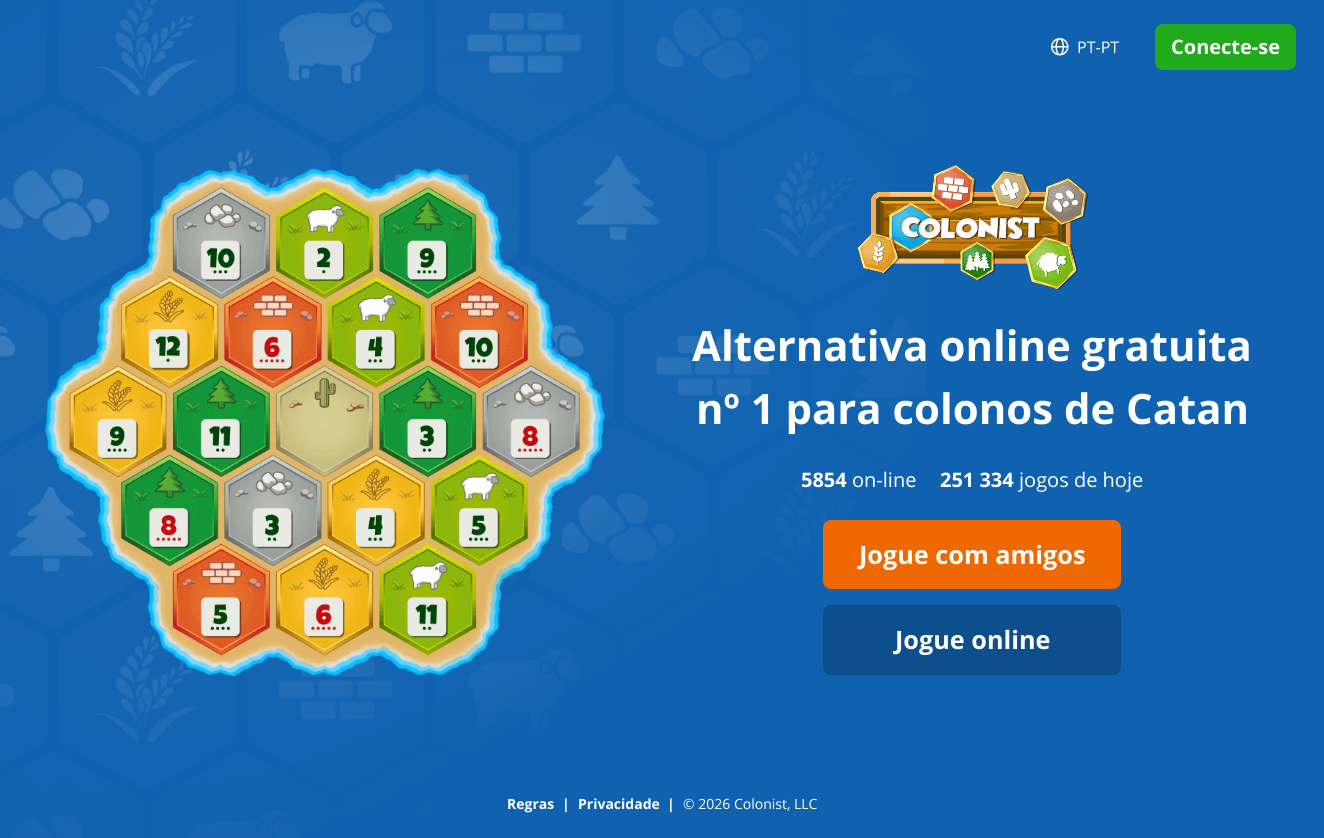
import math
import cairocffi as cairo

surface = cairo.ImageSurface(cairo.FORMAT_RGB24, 1324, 838)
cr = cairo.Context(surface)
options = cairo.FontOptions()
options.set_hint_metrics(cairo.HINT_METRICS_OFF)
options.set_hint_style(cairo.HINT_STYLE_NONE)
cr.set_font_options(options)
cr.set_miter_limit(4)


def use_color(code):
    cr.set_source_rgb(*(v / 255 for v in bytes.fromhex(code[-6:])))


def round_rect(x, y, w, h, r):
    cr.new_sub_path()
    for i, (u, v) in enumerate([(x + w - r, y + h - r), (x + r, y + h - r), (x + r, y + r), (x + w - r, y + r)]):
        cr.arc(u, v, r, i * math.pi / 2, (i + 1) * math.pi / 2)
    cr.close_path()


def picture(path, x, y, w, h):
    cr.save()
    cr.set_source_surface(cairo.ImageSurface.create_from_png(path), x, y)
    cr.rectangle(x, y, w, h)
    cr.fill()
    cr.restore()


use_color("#1062b0")
cr.paint()
picture("img1.png", 0, 0, 927, 838)
picture("img2.png", 1051, 38, 18, 18)
cr.select_font_face("Open Sans")
cr.set_font_size(16)
use_color("#ffffff")
cr.move_to(1077, 53)
cr.show_text("PT-PT")
use_color("#1fab1c")
round_rect(1155, 24, 141, 46, 8)
cr.fill()
cr.select_font_face("Open Sans", cairo.FONT_SLANT_NORMAL, cairo.FONT_WEIGHT_BOLD)
cr.set_font_size(20)
use_color("#ffffff")
cr.move_to(1171, 54)
cr.show_text("Conecte-se")
picture("img3.png", 45, 168, 560, 509)
picture("img4.png", 857, 165, 231, 125)
cr.set_font_size(41.9)
cr.move_to(692, 361)
cr.show_text("Alternativa online gratuita")
cr.move_to(696, 424)
cr.show_text("nº 1 para colonos de Catan")
cr.set_font_size(20)
cr.move_to(801, 487)
cr.show_text("5854")
cr.select_font_face("Open Sans")
cr.move_to(852, 487)
cr.show_text("on-line")
cr.select_font_face("Open Sans", cairo.FONT_SLANT_NORMAL, cairo.FONT_WEIGHT_BOLD)
cr.move_to(940, 487)
cr.show_text("251 334")
cr.select_font_face("Open Sans")
cr.move_to(1019, 487)
cr.show_text("jogos de hoje")
use_color("#f06800")
round_rect(823, 520, 298, 69, 8)
cr.fill()
cr.select_font_face("Open Sans", cairo.FONT_SLANT_NORMAL, cairo.FONT_WEIGHT_BOLD)
cr.set_font_size(25.25)
use_color("#ffffff")
cr.move_to(859, 564)
cr.show_text("Jogue com amigos")
use_color("#0d4e8d")
round_rect(823, 605, 298, 70, 8)
cr.fill()
use_color("#ffffff")
cr.move_to(895, 649)
cr.show_text("Jogue online")
cr.set_font_size(14)
cr.move_to(507, 809)
cr.show_text("Regras")
cr.move_to(562, 809)
cr.show_text("|")
cr.move_to(578, 809)
cr.show_text("Privacidade")
cr.move_to(667, 809)
cr.show_text("|")
cr.select_font_face("Open Sans")
cr.move_to(683, 809)
cr.show_text("© 2026 Colonist, LLC")
surface.write_to_png("result.png")
